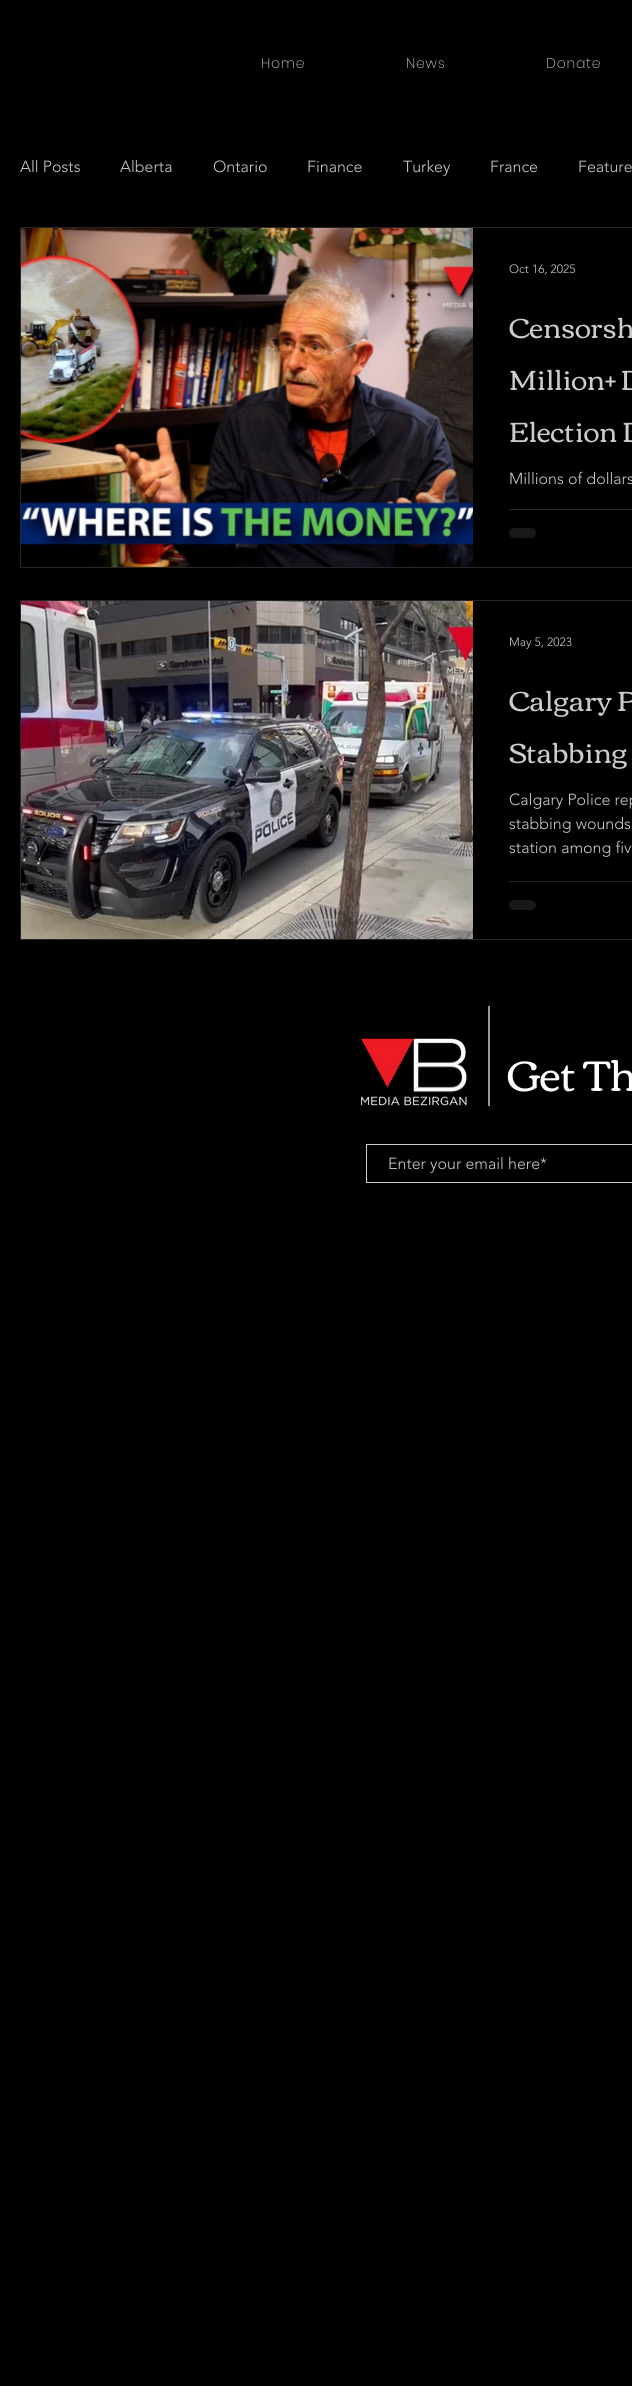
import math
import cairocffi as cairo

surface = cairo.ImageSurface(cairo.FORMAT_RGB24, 632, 2386)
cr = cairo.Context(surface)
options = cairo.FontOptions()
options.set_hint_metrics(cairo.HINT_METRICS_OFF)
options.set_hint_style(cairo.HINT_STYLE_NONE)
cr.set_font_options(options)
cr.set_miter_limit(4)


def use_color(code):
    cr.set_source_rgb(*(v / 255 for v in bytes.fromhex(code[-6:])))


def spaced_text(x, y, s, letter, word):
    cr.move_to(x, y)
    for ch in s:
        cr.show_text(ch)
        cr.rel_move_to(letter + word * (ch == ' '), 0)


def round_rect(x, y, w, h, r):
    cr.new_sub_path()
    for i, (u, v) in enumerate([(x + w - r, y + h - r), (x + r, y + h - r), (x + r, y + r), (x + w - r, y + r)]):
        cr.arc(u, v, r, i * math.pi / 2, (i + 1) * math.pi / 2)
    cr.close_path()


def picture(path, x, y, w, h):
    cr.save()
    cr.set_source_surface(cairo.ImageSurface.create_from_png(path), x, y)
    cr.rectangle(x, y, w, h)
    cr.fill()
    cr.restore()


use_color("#000000")
cr.paint()
cr.select_font_face("Poppins ExtraLight")
cr.set_font_size(14)
use_color("#cccccc")
spaced_text(261, 68, "Home", 0.75, 0)
spaced_text(406, 68, "News", 0.75, 0)
spaced_text(546, 68, "Donate", 0.75, 0)
cr.select_font_face("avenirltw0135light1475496 Light")
cr.set_font_size(16)
cr.move_to(20, 172)
cr.show_text("All Posts")
cr.move_to(120, 172)
cr.show_text("Alberta")
cr.move_to(213, 172)
cr.show_text("Ontario")
cr.move_to(307, 172)
cr.show_text("Finance")
cr.move_to(403, 172)
cr.show_text("Turkey")
cr.move_to(490, 172)
cr.show_text("France")
cr.move_to(578, 172)
cr.show_text("Feature")
cr.rectangle(20.5, 227.5, 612, 340)
use_color("#262626")
cr.set_line_width(1)
cr.stroke()
picture("img1.png", 21, 228, 452, 339)
cr.set_font_size(12)
use_color("#cccccc")
cr.move_to(509, 273)
cr.show_text("Oct 16, 2025")
cr.select_font_face("Corben")
cr.set_font_size(28)
cr.move_to(509, 338)
cr.show_text("Censorsh")
cr.move_to(509, 390)
cr.show_text("Million+ D")
cr.move_to(509, 442)
cr.show_text("Election D")
cr.select_font_face("avenirltw0135light1475496 Light")
cr.set_font_size(16)
cr.move_to(509, 484)
cr.show_text("Millions of dollars")
use_color("#292929")
cr.rectangle(509, 509, 123, 1)
cr.fill()
use_color("#181818")
round_rect(509, 528, 27, 10, 5)
cr.fill()
cr.rectangle(20.5, 600.5, 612, 339)
use_color("#262626")
cr.stroke()
picture("img2.png", 21, 601, 452, 338)
cr.set_font_size(12)
use_color("#cccccc")
cr.move_to(509, 646)
cr.show_text("May 5, 2023")
cr.select_font_face("Corben")
cr.set_font_size(28)
cr.move_to(509, 711)
cr.show_text("Calgary P")
cr.move_to(509, 763)
cr.show_text("Stabbing")
cr.select_font_face("avenirltw0135light1475496 Light")
cr.set_font_size(16)
cr.move_to(509, 805)
cr.show_text("Calgary Police rep")
cr.move_to(509, 829)
cr.show_text("stabbing wounds")
cr.move_to(509, 853)
cr.show_text("station among fiv")
use_color("#292929")
cr.rectangle(509, 881, 123, 1)
cr.fill()
use_color("#181818")
round_rect(509, 900, 27, 10, 5)
cr.fill()
picture("img3.png", 360, 1038, 107, 68)
use_color("#999999")
cr.rectangle(488, 1006, 2, 100)
cr.fill()
cr.select_font_face("Corben")
cr.set_font_size(43)
use_color("#ffffff")
cr.move_to(507, 1091)
cr.show_text("Get Th")
cr.rectangle(366.5, 1144.5, 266, 38)
use_color("#cccccc")
cr.stroke()
cr.select_font_face("avenirltw0135light1475496 Light")
cr.set_font_size(16)
cr.move_to(388, 1169)
cr.show_text("Enter your email here*")
surface.write_to_png("result.png")
